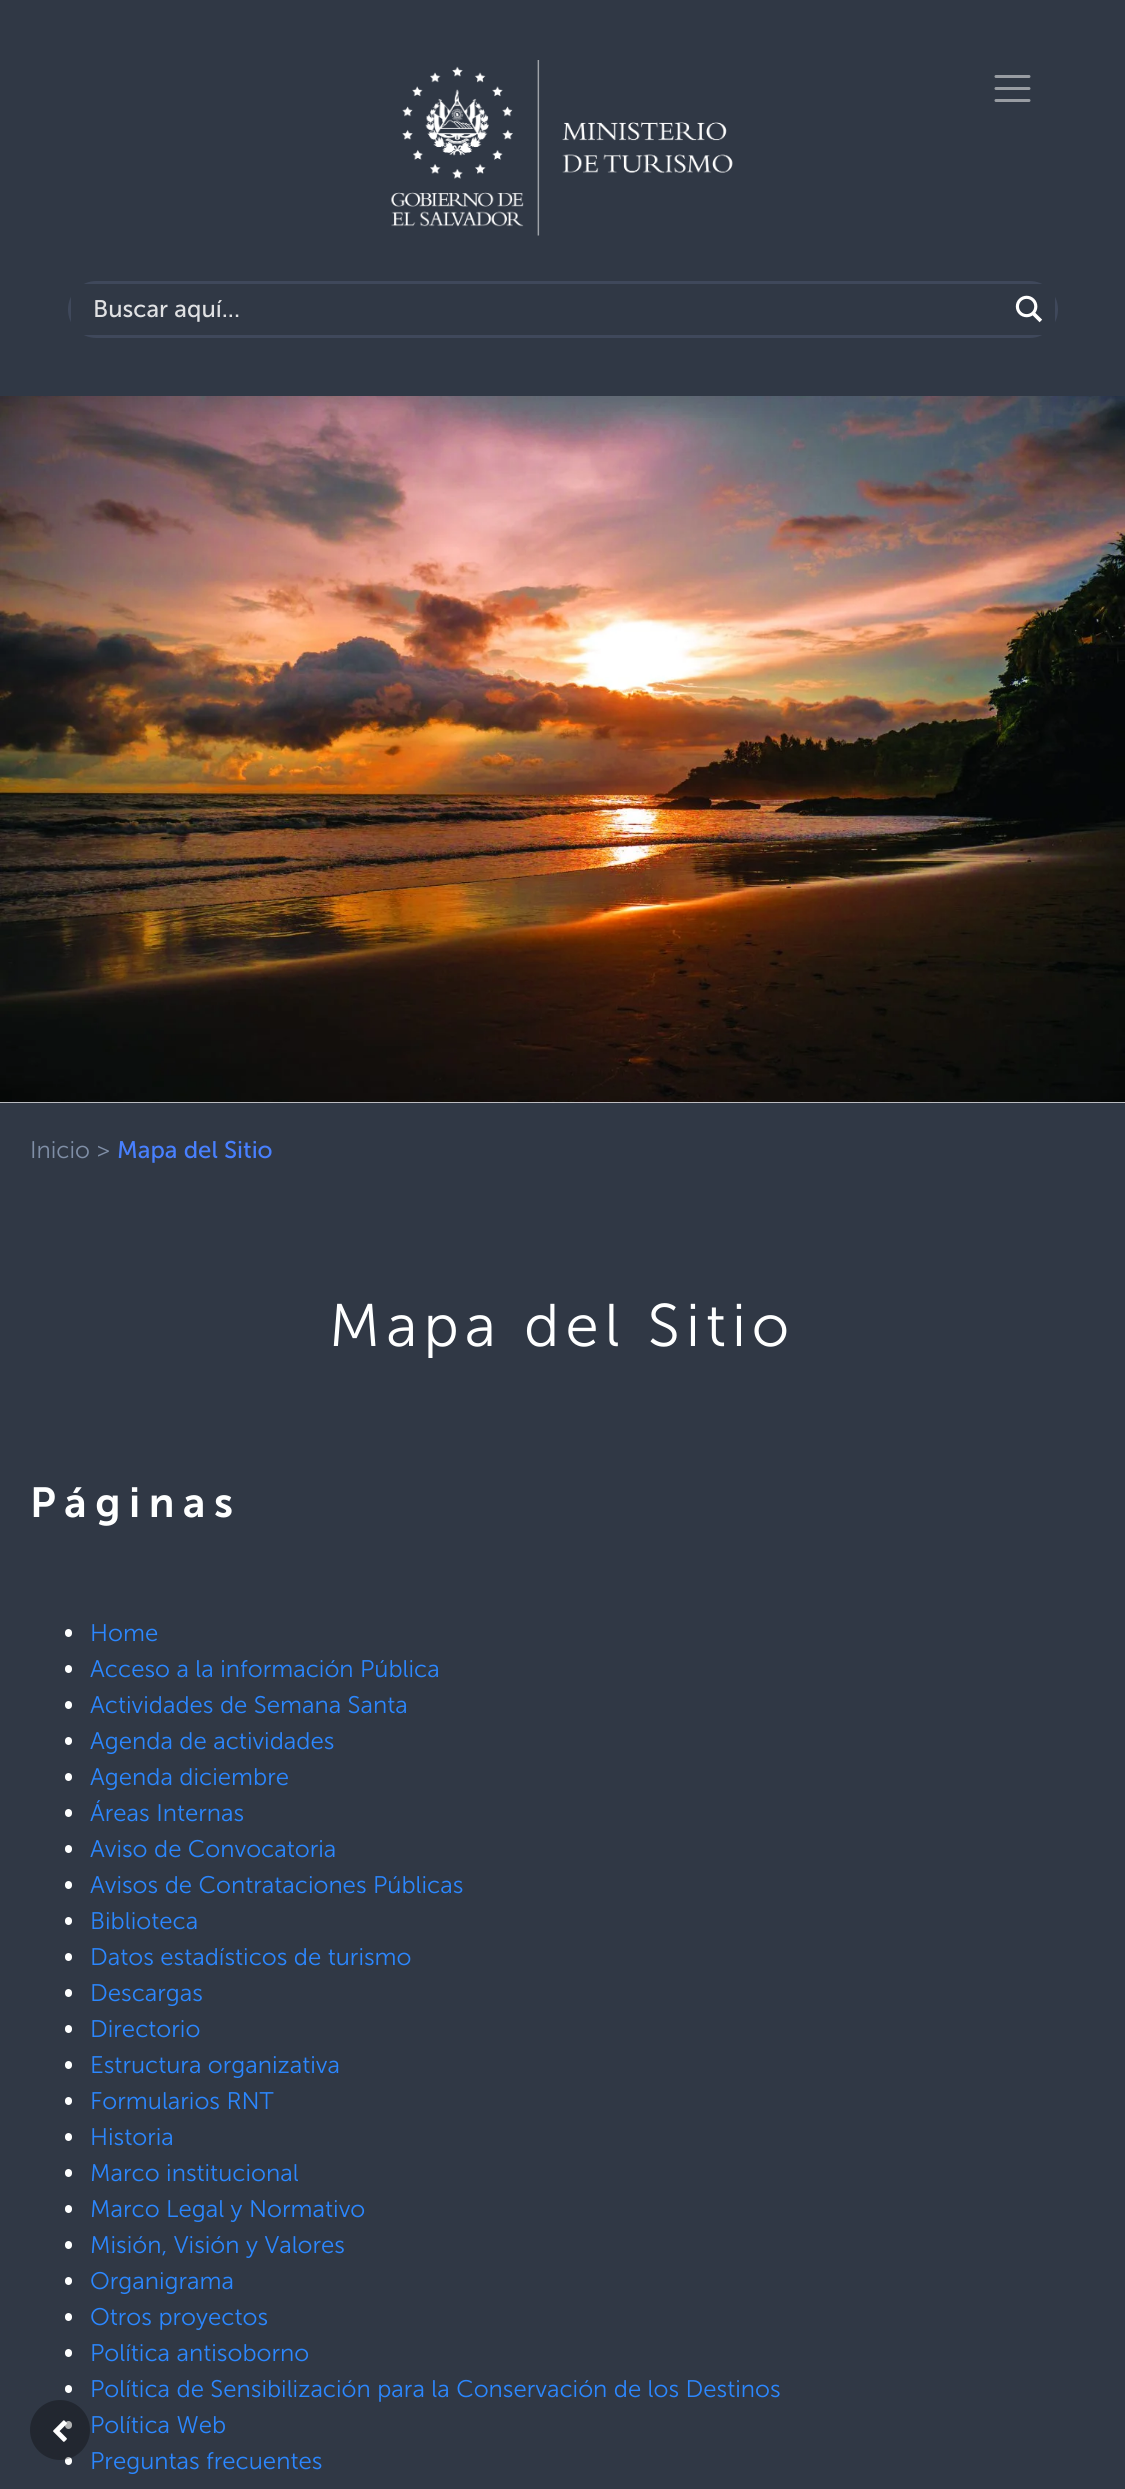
import math
import cairocffi as cairo

surface = cairo.ImageSurface(cairo.FORMAT_RGB24, 1125, 2489)
cr = cairo.Context(surface)
options = cairo.FontOptions()
options.set_hint_metrics(cairo.HINT_METRICS_OFF)
options.set_hint_style(cairo.HINT_STYLE_NONE)
cr.set_font_options(options)
cr.set_miter_limit(4)


def use_color(code):
    cr.set_source_rgb(*(v / 255 for v in bytes.fromhex(code[-6:])))


def spaced_text(x, y, s, letter, word):
    cr.move_to(x, y)
    for ch in s:
        cr.show_text(ch)
        cr.rel_move_to(letter + word * (ch == ' '), 0)


def round_rect(x, y, w, h, r):
    cr.new_sub_path()
    for i, (u, v) in enumerate([(x + w - r, y + h - r), (x + r, y + h - r), (x + r, y + r), (x + w - r, y + r)]):
        cr.arc(u, v, r, i * math.pi / 2, (i + 1) * math.pi / 2)
    cr.close_path()


def picture(path, x, y, w, h):
    cr.save()
    cr.set_source_surface(cairo.ImageSurface.create_from_png(path), x, y)
    cr.rectangle(x, y, w, h)
    cr.fill()
    cr.restore()


use_color("#303845")
cr.paint()
cr.new_path()
cr.move_to(996, 76.5)
cr.line_to(1029, 76.5)
cr.move_to(996, 88.5)
cr.line_to(1029, 88.5)
cr.move_to(996, 100.5)
cr.line_to(1029, 100.5)
use_color("#989ca2")
cr.set_line_width(3)
cr.set_line_cap(cairo.LINE_CAP_ROUND)
cr.stroke()
picture("img1.png", 391, 60, 342, 176)
round_rect(69.5, 282.5, 987, 54, 27)
use_color("#3f485b")
cr.set_line_cap(cairo.LINE_CAP_BUTT)
cr.stroke()
use_color("#303845")
cr.rectangle(71, 284, 984, 51)
cr.fill()
cr.select_font_face("Museo Sans")
cr.set_font_size(24)
use_color("#e0e1e3")
cr.move_to(93, 317)
cr.show_text("Buscar aquí...")
picture("img2.png", 1015, 295, 28, 28)
use_color("#f5f7fe")
cr.rectangle(0, 1102, 1125, 1)
cr.fill()
picture("img3.png", 0, 396, 1125, 707)
cr.select_font_face("Museo Sans Light")
use_color("#808fa7")
cr.move_to(30, 1158)
cr.show_text("Inicio >")
cr.select_font_face("Museo Sans")
use_color("#4880ff")
cr.move_to(117, 1158)
cr.show_text("Mapa del Sitio")
cr.select_font_face("Museo Sans Light")
cr.set_font_size(60)
use_color("#feffff")
spaced_text(329, 1346, "Mapa del Sitio", 6, 0)
cr.select_font_face("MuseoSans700")
cr.set_font_size(42)
spaced_text(30, 1517, "Páginas", 8.5, 0)
round_rect(65, 1629, 7, 8, 3.5)
cr.fill()
cr.select_font_face("Museo Sans Light")
cr.set_font_size(24)
use_color("#2b87ff")
cr.move_to(90, 1641)
cr.show_text("Home")
use_color("#feffff")
round_rect(65, 1665, 7, 8, 3.5)
cr.fill()
use_color("#2b87ff")
cr.move_to(90, 1677)
cr.show_text("Acceso a la información Pública")
use_color("#feffff")
round_rect(65, 1701, 7, 8, 3.5)
cr.fill()
use_color("#2b87ff")
cr.move_to(90, 1713)
cr.show_text("Actividades de Semana Santa")
use_color("#feffff")
round_rect(65, 1737, 7, 8, 3.5)
cr.fill()
use_color("#2b87ff")
cr.move_to(90, 1749)
cr.show_text("Agenda de actividades")
use_color("#feffff")
round_rect(65, 1773, 7, 8, 3.5)
cr.fill()
use_color("#2b87ff")
cr.move_to(90, 1785)
cr.show_text("Agenda diciembre")
use_color("#feffff")
round_rect(65, 1809, 7, 8, 3.5)
cr.fill()
use_color("#2b87ff")
cr.move_to(90, 1821)
cr.show_text("Áreas Internas")
use_color("#feffff")
round_rect(65, 1845, 7, 8, 3.5)
cr.fill()
use_color("#2b87ff")
cr.move_to(90, 1857)
cr.show_text("Aviso de Convocatoria")
use_color("#feffff")
round_rect(65, 1881, 7, 8, 3.5)
cr.fill()
use_color("#2b87ff")
cr.move_to(90, 1893)
cr.show_text("Avisos de Contrataciones Públicas")
use_color("#feffff")
round_rect(65, 1917, 7, 8, 3.5)
cr.fill()
use_color("#2b87ff")
cr.move_to(90, 1929)
cr.show_text("Biblioteca")
use_color("#feffff")
round_rect(65, 1953, 7, 8, 3.5)
cr.fill()
use_color("#2b87ff")
cr.move_to(90, 1965)
cr.show_text("Datos estadísticos de turismo")
use_color("#feffff")
round_rect(65, 1989, 7, 8, 3.5)
cr.fill()
use_color("#2b87ff")
cr.move_to(90, 2001)
cr.show_text("Descargas")
use_color("#feffff")
round_rect(65, 2025, 7, 8, 3.5)
cr.fill()
use_color("#2b87ff")
cr.move_to(90, 2037)
cr.show_text("Directorio")
use_color("#feffff")
round_rect(65, 2061, 7, 8, 3.5)
cr.fill()
use_color("#2b87ff")
cr.move_to(90, 2073)
cr.show_text("Estructura organizativa")
use_color("#feffff")
round_rect(65, 2097, 7, 8, 3.5)
cr.fill()
use_color("#2b87ff")
cr.move_to(90, 2109)
cr.show_text("Formularios RNT")
use_color("#feffff")
round_rect(65, 2133, 7, 8, 3.5)
cr.fill()
use_color("#2b87ff")
cr.move_to(90, 2145)
cr.show_text("Historia")
use_color("#feffff")
round_rect(65, 2169, 7, 8, 3.5)
cr.fill()
use_color("#2b87ff")
cr.move_to(90, 2181)
cr.show_text("Marco institucional")
use_color("#feffff")
round_rect(65, 2205, 7, 8, 3.5)
cr.fill()
use_color("#2b87ff")
cr.move_to(90, 2217)
cr.show_text("Marco Legal y Normativo")
use_color("#feffff")
round_rect(65, 2241, 7, 8, 3.5)
cr.fill()
use_color("#2b87ff")
cr.move_to(90, 2253)
cr.show_text("Misión, Visión y Valores")
use_color("#feffff")
round_rect(65, 2277, 7, 8, 3.5)
cr.fill()
use_color("#2b87ff")
cr.move_to(90, 2289)
cr.show_text("Organigrama")
use_color("#feffff")
round_rect(65, 2313, 7, 8, 3.5)
cr.fill()
use_color("#2b87ff")
cr.move_to(90, 2325)
cr.show_text("Otros proyectos")
use_color("#feffff")
round_rect(65, 2349, 7, 8, 3.5)
cr.fill()
use_color("#2b87ff")
cr.move_to(90, 2361)
cr.show_text("Política antisoborno")
use_color("#feffff")
round_rect(65, 2385, 7, 8, 3.5)
cr.fill()
use_color("#2b87ff")
cr.move_to(90, 2397)
cr.show_text("Política de Sensibilización para la Conservación de los Destinos")
use_color("#feffff")
round_rect(65, 2421, 7, 8, 3.5)
cr.fill()
use_color("#2b87ff")
cr.move_to(90, 2433)
cr.show_text("Política Web")
use_color("#feffff")
round_rect(65, 2457, 7, 8, 3.5)
cr.fill()
use_color("#2b87ff")
cr.move_to(90, 2469)
cr.show_text("Preguntas frecuentes")
cr.set_source_rgba(0, 0, 0, 0.3)
cr.new_path()
cr.arc(60, 2430, 30, 0, 2 * math.pi)
cr.fill()
picture("img4.png", 53, 2420, 14, 22)
surface.write_to_png("result.png")
